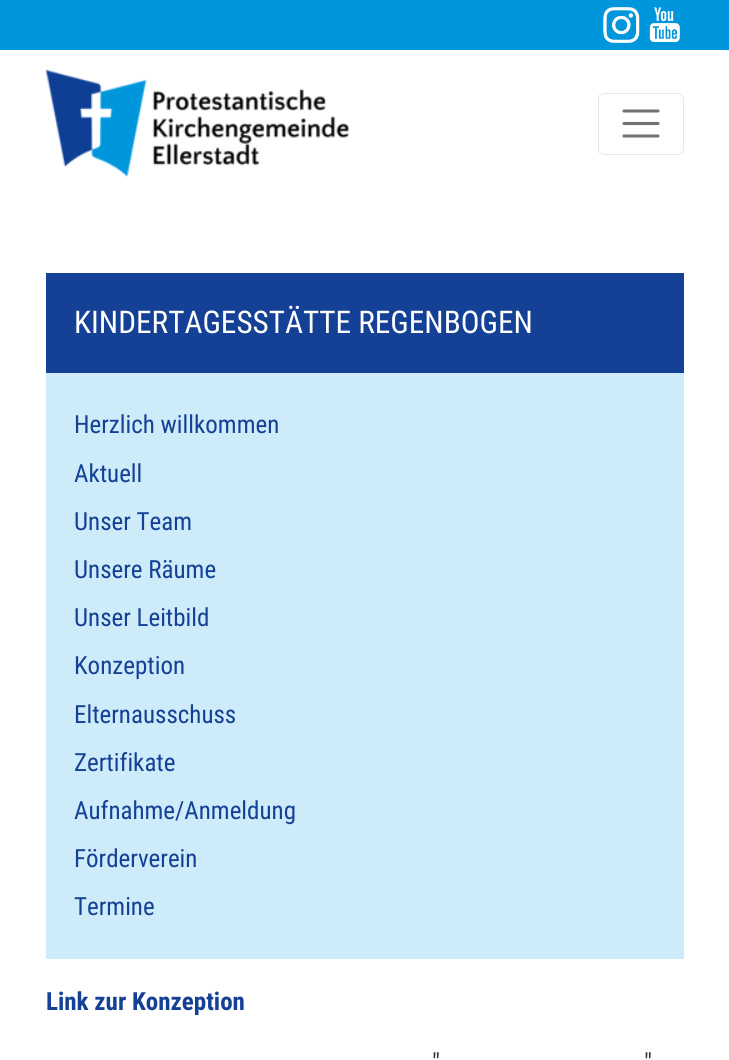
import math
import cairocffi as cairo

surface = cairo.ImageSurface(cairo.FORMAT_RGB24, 729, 1060)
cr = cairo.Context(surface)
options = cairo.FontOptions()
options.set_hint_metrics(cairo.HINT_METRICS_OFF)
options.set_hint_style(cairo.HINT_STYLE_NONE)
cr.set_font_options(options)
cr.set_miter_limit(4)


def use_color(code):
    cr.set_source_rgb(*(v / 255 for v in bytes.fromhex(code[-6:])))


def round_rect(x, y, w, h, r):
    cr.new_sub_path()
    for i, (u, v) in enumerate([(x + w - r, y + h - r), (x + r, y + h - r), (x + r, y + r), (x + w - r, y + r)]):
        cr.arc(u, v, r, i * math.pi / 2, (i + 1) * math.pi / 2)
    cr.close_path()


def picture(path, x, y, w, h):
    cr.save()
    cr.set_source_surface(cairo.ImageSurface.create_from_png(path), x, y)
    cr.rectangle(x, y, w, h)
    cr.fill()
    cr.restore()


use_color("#ffffff")
cr.paint()
use_color("#0096dc")
cr.rectangle(0, 0, 729, 50)
cr.fill()
picture("img1.png", 603, 7, 37, 36)
picture("img2.png", 649, 7, 31, 35)
picture("img3.png", 46, 70, 303, 107)
round_rect(598.5, 93.5, 85, 61, 5.5)
use_color("#e6e6e6")
cr.set_line_width(1)
cr.stroke()
cr.new_path()
cr.move_to(624, 111)
cr.line_to(658, 111)
cr.move_to(624, 123.5)
cr.line_to(658, 123.5)
cr.move_to(624, 136)
cr.line_to(658, 136)
use_color("#737373")
cr.set_line_width(3.1)
cr.set_line_cap(cairo.LINE_CAP_ROUND)
cr.stroke()
use_color("#cdebf9")
cr.rectangle(46, 373, 638, 586)
cr.fill()
use_color("#144196")
cr.rectangle(46, 273, 638, 100)
cr.fill()
cr.select_font_face("Roboto Condensed")
cr.set_font_size(31.25)
use_color("#ffffff")
cr.move_to(74, 333)
cr.show_text("KINDERTAGESSTÄTTE REGENBOGEN")
cr.set_font_size(25)
use_color("#144196")
cr.move_to(74, 433)
cr.show_text("Herzlich willkommen")
cr.move_to(74, 482)
cr.show_text("Aktuell")
cr.move_to(74, 530)
cr.show_text("Unser Team")
cr.move_to(74, 578)
cr.show_text("Unsere Räume")
cr.move_to(74, 626)
cr.show_text("Unser Leitbild")
cr.move_to(74, 674)
cr.show_text("Konzeption")
cr.move_to(74, 723)
cr.show_text("Elternausschuss")
cr.move_to(74, 771)
cr.show_text("Zertifikate")
cr.move_to(74, 819)
cr.show_text("Aufnahme/Anmeldung")
cr.move_to(74, 867)
cr.show_text("Förderverein")
cr.move_to(74, 915)
cr.show_text("Termine")
cr.select_font_face("Roboto Condensed", cairo.FONT_SLANT_NORMAL, cairo.FONT_WEIGHT_BOLD)
cr.move_to(46, 1010)
cr.show_text("Link zur Konzeption")
cr.select_font_face("Roboto Condensed")
use_color("#323232")
cr.move_to(432, 1071)
cr.show_text("\"")
cr.move_to(644, 1071)
cr.show_text("\"")
surface.write_to_png("result.png")
